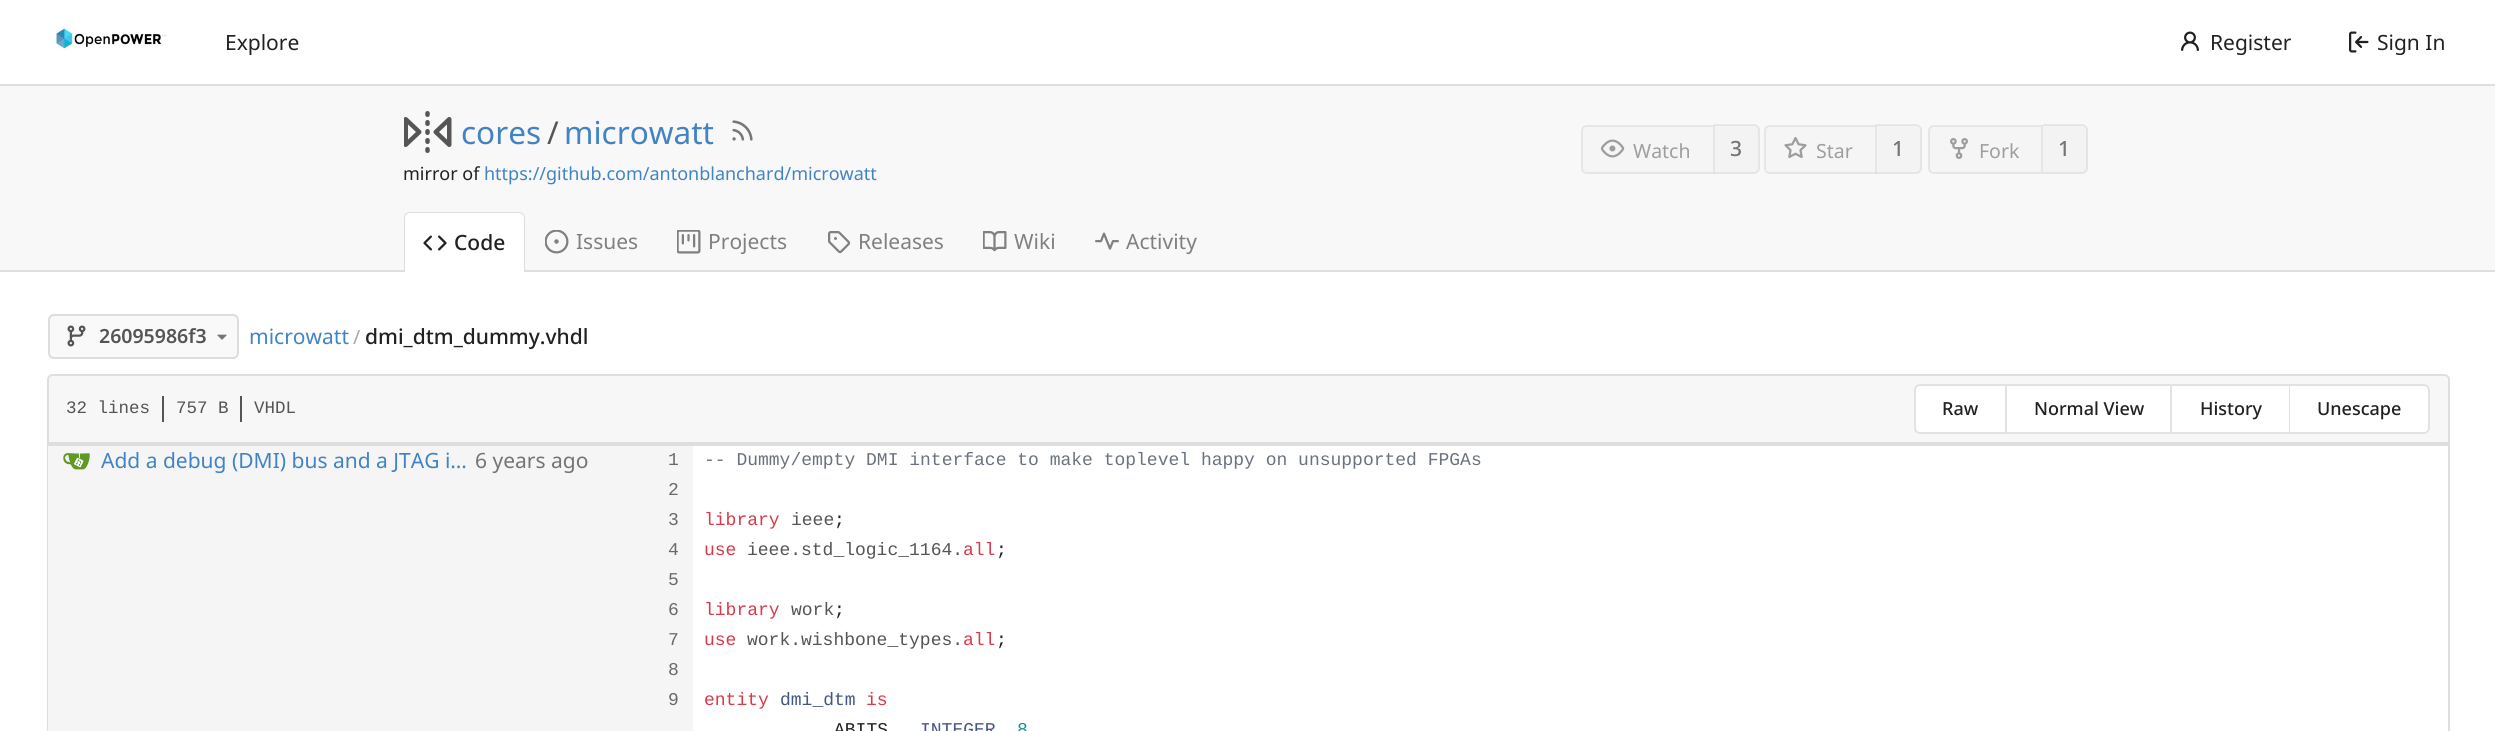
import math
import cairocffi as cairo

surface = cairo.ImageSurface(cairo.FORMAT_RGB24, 2495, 731)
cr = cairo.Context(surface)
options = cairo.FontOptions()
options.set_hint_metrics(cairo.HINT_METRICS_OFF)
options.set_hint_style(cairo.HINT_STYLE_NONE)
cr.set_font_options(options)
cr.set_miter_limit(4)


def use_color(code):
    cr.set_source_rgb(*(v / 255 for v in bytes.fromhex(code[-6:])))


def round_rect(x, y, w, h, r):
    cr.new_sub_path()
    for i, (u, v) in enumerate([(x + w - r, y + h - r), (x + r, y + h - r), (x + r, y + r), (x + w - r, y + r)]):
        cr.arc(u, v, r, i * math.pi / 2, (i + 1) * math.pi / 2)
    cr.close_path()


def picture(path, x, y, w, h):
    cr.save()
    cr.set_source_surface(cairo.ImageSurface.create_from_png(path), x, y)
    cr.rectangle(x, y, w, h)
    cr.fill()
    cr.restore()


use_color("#ffffff")
cr.paint()
use_color("#dedede")
cr.rectangle(0, 84, 2495, 2)
cr.fill()
picture("img1.png", 56, 28, 111, 21)
cr.select_font_face("Noto Sans")
cr.set_font_size(21)
use_color("#212121")
cr.move_to(225, 50)
cr.show_text("Explore")
picture("img2.png", 2181, 31, 18, 20)
cr.move_to(2210, 50)
cr.show_text("Register")
picture("img3.png", 2349, 31, 20, 22)
cr.move_to(2377, 50)
cr.show_text("Sign In")
use_color("#f8f8f8")
cr.rectangle(0, 86, 2495, 184)
cr.fill()
picture("img4.png", 404, 111, 48, 42)
cr.set_font_size(31.5)
use_color("#4183c4")
cr.move_to(461, 144)
cr.show_text("cores")
use_color("#555555")
cr.move_to(547, 144)
cr.show_text("/")
use_color("#4183c4")
cr.move_to(564, 144)
cr.show_text("microwatt")
picture("img5.png", 732, 120, 21, 21)
cr.set_font_size(18)
use_color("#212121")
cr.move_to(403, 180)
cr.show_text("mirror of")
use_color("#4183c4")
cr.move_to(484, 180)
cr.show_text("https://github.com/antonblanchard/microwatt")
use_color("#f5f5f5")
cr.new_path()
cr.move_to(1587, 126)
cr.line_to(1714, 126)
cr.line_to(1714, 173)
cr.line_to(1587, 173)
cr.curve_to(1584, 173, 1582, 171, 1582, 168)
cr.line_to(1582, 131)
cr.curve_to(1582, 128, 1584, 126, 1587, 126)
cr.close_path()
cr.fill_preserve()
use_color("#e6e6e6")
cr.stroke()
picture("img6.png", 1601, 139, 24, 19)
cr.set_font_size(19.5)
use_color("#9e9e9e")
cr.move_to(1633, 158)
cr.show_text("Watch")
use_color("#f3f3f3")
cr.new_path()
cr.move_to(1715, 125)
cr.line_to(1754, 125)
cr.curve_to(1757.5, 125, 1760, 127.5, 1760, 131)
cr.line_to(1760, 168)
cr.curve_to(1760, 171.5, 1757.5, 174, 1754, 174)
cr.line_to(1715, 174)
cr.close_path()
cr.fill()
cr.set_source_rgba(0, 0, 0, 0.06)
cr.set_fill_rule(cairo.FILL_RULE_EVEN_ODD)
cr.new_path()
cr.move_to(1714, 124)
cr.line_to(1754, 124)
cr.curve_to(1757, 124, 1760, 127, 1760, 130)
cr.line_to(1760, 168)
cr.curve_to(1760, 171, 1757, 174, 1754, 174)
cr.line_to(1714, 174)
cr.close_path()
cr.move_to(1714, 126)
cr.line_to(1754, 126)
cr.curve_to(1756, 126, 1758, 128, 1758, 130)
cr.line_to(1758, 168)
cr.curve_to(1758, 170, 1756, 172, 1754, 172)
cr.line_to(1714, 172)
cr.close_path()
cr.fill()
cr.select_font_face("Noto Sans Medium")
cr.set_font_size(21)
use_color("#747474")
cr.move_to(1730, 156)
cr.show_text("3")
use_color("#f5f5f5")
cr.new_path()
cr.move_to(1770, 126)
cr.line_to(1876, 126)
cr.line_to(1876, 173)
cr.line_to(1770, 173)
cr.curve_to(1767, 173, 1765, 171, 1765, 168)
cr.line_to(1765, 131)
cr.curve_to(1765, 128, 1767, 126, 1770, 126)
cr.close_path()
cr.fill_preserve()
use_color("#e6e6e6")
cr.stroke()
picture("img7.png", 1784, 137, 23, 22)
cr.select_font_face("Noto Sans")
cr.set_font_size(19.5)
use_color("#9e9e9e")
cr.move_to(1816, 158)
cr.show_text("Star")
use_color("#f3f3f3")
cr.new_path()
cr.move_to(1877, 125)
cr.line_to(1916, 125)
cr.curve_to(1919.5, 125, 1922, 127.5, 1922, 131)
cr.line_to(1922, 168)
cr.curve_to(1922, 171.5, 1919.5, 174, 1916, 174)
cr.line_to(1877, 174)
cr.close_path()
cr.fill()
cr.set_source_rgba(0, 0, 0, 0.06)
cr.new_path()
cr.move_to(1876, 124)
cr.line_to(1916, 124)
cr.curve_to(1919, 124, 1922, 127, 1922, 130)
cr.line_to(1922, 168)
cr.curve_to(1922, 171, 1919, 174, 1916, 174)
cr.line_to(1876, 174)
cr.close_path()
cr.move_to(1876, 126)
cr.line_to(1916, 126)
cr.curve_to(1918, 126, 1920, 128, 1920, 130)
cr.line_to(1920, 168)
cr.curve_to(1920, 170, 1918, 172, 1916, 172)
cr.line_to(1876, 172)
cr.close_path()
cr.fill()
cr.select_font_face("Noto Sans Medium")
cr.set_font_size(21)
use_color("#747474")
cr.move_to(1892, 156)
cr.show_text("1")
use_color("#f5f5f5")
cr.new_path()
cr.move_to(1934, 126)
cr.line_to(2042, 126)
cr.line_to(2042, 173)
cr.line_to(1934, 173)
cr.curve_to(1931, 173, 1929, 171, 1929, 168)
cr.line_to(1929, 131)
cr.curve_to(1929, 128, 1931, 126, 1934, 126)
cr.close_path()
cr.fill_preserve()
use_color("#e6e6e6")
cr.stroke()
picture("img8.png", 1950, 138, 18, 21)
cr.select_font_face("Noto Sans")
cr.set_font_size(19.5)
use_color("#9e9e9e")
cr.move_to(1979, 158)
cr.show_text("Fork")
use_color("#f3f3f3")
cr.new_path()
cr.move_to(2043, 125)
cr.line_to(2082, 125)
cr.curve_to(2085.5, 125, 2088, 127.5, 2088, 131)
cr.line_to(2088, 168)
cr.curve_to(2088, 171.5, 2085.5, 174, 2082, 174)
cr.line_to(2043, 174)
cr.close_path()
cr.fill()
cr.set_source_rgba(0.439, 0.439, 0.439, 0.11)
cr.new_path()
cr.move_to(2043, 124)
cr.line_to(2082, 124)
cr.curve_to(2085, 124, 2088, 127, 2088, 130)
cr.line_to(2088, 168)
cr.curve_to(2088, 171, 2085, 174, 2082, 174)
cr.line_to(2043, 174)
cr.close_path()
cr.move_to(2043, 126)
cr.line_to(2082, 126)
cr.curve_to(2084, 126, 2086, 128, 2086, 130)
cr.line_to(2086, 168)
cr.curve_to(2086, 170, 2084, 172, 2082, 172)
cr.line_to(2043, 172)
cr.close_path()
cr.fill()
cr.select_font_face("Noto Sans Medium")
cr.set_font_size(21)
use_color("#747474")
cr.move_to(2058, 156)
cr.show_text("1")
use_color("#dedede")
cr.rectangle(0, 270, 2495, 2)
cr.fill()
use_color("#ffffff")
cr.new_path()
cr.move_to(410, 212)
cr.line_to(519, 212)
cr.curve_to(522.5, 212, 525, 214.5, 525, 218)
cr.line_to(525, 272)
cr.line_to(404, 272)
cr.line_to(404, 218)
cr.curve_to(404, 214.5, 406.5, 212, 410, 212)
cr.close_path()
cr.fill()
use_color("#dedede")
cr.new_path()
cr.move_to(410, 212)
cr.line_to(519, 212)
cr.curve_to(522, 212, 525, 214, 525, 218)
cr.line_to(525, 272)
cr.line_to(404, 272)
cr.line_to(404, 218)
cr.curve_to(404, 214, 406, 212, 410, 212)
cr.close_path()
cr.move_to(410, 213)
cr.line_to(519, 213)
cr.curve_to(521, 213, 524, 215, 524, 218)
cr.line_to(524, 272)
cr.line_to(405, 272)
cr.line_to(405, 218)
cr.curve_to(405, 215, 407, 213, 410, 213)
cr.close_path()
cr.fill()
picture("img9.png", 423, 235, 24, 16)
use_color("#212121")
cr.move_to(454, 250)
cr.show_text("Code")
picture("img10.png", 545, 230, 24, 24)
cr.select_font_face("Noto Sans")
use_color("#808080")
cr.move_to(576, 249)
cr.show_text("Issues")
picture("img11.png", 677, 230, 24, 24)
cr.move_to(708, 249)
cr.show_text("Projects")
picture("img12.png", 828, 231, 23, 23)
cr.move_to(858, 249)
cr.show_text("Releases")
picture("img13.png", 983, 231, 24, 21)
cr.move_to(1014, 249)
cr.show_text("Wiki")
picture("img14.png", 1095, 232, 24, 18)
cr.move_to(1126, 249)
cr.show_text("Activity")
use_color("#f9f9f9")
round_rect(49, 315, 189, 43, 5)
cr.fill_preserve()
use_color("#dddddd")
cr.stroke()
picture("img15.png", 67, 325, 19, 22)
cr.select_font_face("Noto Sans SemiBold")
cr.set_font_size(19.5)
use_color("#555555")
cr.move_to(99, 343)
cr.show_text("26095986f3")
picture("img16.png", 217, 334, 10, 6)
cr.select_font_face("Noto Sans")
cr.set_font_size(21)
use_color("#4183c4")
cr.move_to(249, 344)
cr.show_text("microwatt")
cr.set_font_size(19.5)
use_color("#a6a6a6")
cr.move_to(353, 344)
cr.show_text("/")
cr.select_font_face("Noto Sans Medium")
cr.set_font_size(21)
use_color("#212121")
cr.move_to(365, 344)
cr.show_text("dmi_dtm_dummy.vhdl")
use_color("#f7f7f7")
cr.new_path()
cr.move_to(53, 375)
cr.line_to(2444, 375)
cr.curve_to(2447, 375, 2449, 377, 2449, 380)
cr.line_to(2449, 443)
cr.line_to(48, 443)
cr.line_to(48, 380)
cr.curve_to(48, 377, 50, 375, 53, 375)
cr.close_path()
cr.fill_preserve()
use_color("#dedede")
cr.stroke()
cr.select_font_face("Liberation Mono")
cr.set_font_size(17.5)
use_color("#555555")
cr.move_to(66, 413)
cr.show_text("32 lines")
cr.rectangle(162, 396, 2, 26)
cr.fill()
cr.move_to(176, 413)
cr.show_text("757 B")
cr.rectangle(240, 396, 2, 26)
cr.fill()
cr.move_to(254, 413)
cr.show_text("VHDL")
use_color("#ffffff")
cr.new_path()
cr.move_to(1920, 385)
cr.line_to(2006, 385)
cr.line_to(2006, 433)
cr.line_to(1920, 433)
cr.curve_to(1917, 433, 1915, 431, 1915, 428)
cr.line_to(1915, 390)
cr.curve_to(1915, 387, 1917, 385, 1920, 385)
cr.close_path()
cr.fill_preserve()
use_color("#e2e2e2")
cr.stroke()
cr.select_font_face("Noto Sans Medium")
cr.set_font_size(18)
use_color("#212121")
cr.move_to(1942, 415)
cr.show_text("Raw")
use_color("#ffffff")
cr.rectangle(2007, 384, 284, 50)
cr.fill()
use_color("#e2e2e2")
cr.set_fill_rule(cairo.FILL_RULE_WINDING)
cr.new_path()
cr.move_to(2007, 384)
cr.line_to(2172, 384)
cr.line_to(2170, 386)
cr.line_to(2007, 386)
cr.close_path()
cr.fill()
cr.set_source_rgba(0, 0, 0, 0.11)
cr.new_path()
cr.move_to(2172, 384)
cr.line_to(2172, 434)
cr.line_to(2170, 432)
cr.line_to(2170, 386)
cr.close_path()
cr.fill()
cr.new_path()
cr.move_to(2172, 434)
cr.line_to(2007, 434)
cr.line_to(2007, 432)
cr.line_to(2170, 432)
cr.close_path()
cr.fill()
use_color("#212121")
cr.move_to(2034, 415)
cr.show_text("Normal View")
use_color("#e2e2e2")
cr.new_path()
cr.move_to(2172, 384)
cr.line_to(2290, 384)
cr.line_to(2289, 386)
cr.line_to(2172, 386)
cr.close_path()
cr.fill()
cr.set_source_rgba(0, 0, 0, 0.11)
cr.new_path()
cr.move_to(2290, 384)
cr.line_to(2290, 434)
cr.line_to(2289, 432)
cr.line_to(2289, 386)
cr.close_path()
cr.fill()
cr.new_path()
cr.move_to(2290, 434)
cr.line_to(2172, 434)
cr.line_to(2172, 432)
cr.line_to(2289, 432)
cr.close_path()
cr.fill()
use_color("#212121")
cr.move_to(2200, 415)
cr.show_text("History")
use_color("#ffffff")
cr.new_path()
cr.move_to(2291, 384)
cr.line_to(2424, 384)
cr.curve_to(2427.5, 384, 2430, 386.5, 2430, 390)
cr.line_to(2430, 428)
cr.curve_to(2430, 431.5, 2427.5, 434, 2424, 434)
cr.line_to(2291, 434)
cr.close_path()
cr.fill()
use_color("#e2e2e2")
cr.set_fill_rule(cairo.FILL_RULE_EVEN_ODD)
cr.new_path()
cr.move_to(2290, 384)
cr.line_to(2424, 384)
cr.curve_to(2427, 384, 2430, 387, 2430, 390)
cr.line_to(2430, 428)
cr.curve_to(2430, 431, 2427, 434, 2424, 434)
cr.line_to(2290, 434)
cr.close_path()
cr.move_to(2290, 386)
cr.line_to(2424, 386)
cr.curve_to(2426, 386, 2428, 388, 2428, 390)
cr.line_to(2428, 428)
cr.curve_to(2428, 430, 2426, 432, 2424, 432)
cr.line_to(2290, 432)
cr.close_path()
cr.fill()
use_color("#212121")
cr.move_to(2317, 415)
cr.show_text("Unescape")
use_color("#dedede")
cr.rectangle(2448, 444, 2, 287)
cr.fill()
cr.rectangle(47, 444, 1, 287)
cr.fill()
cr.rectangle(48, 444, 2402, 2)
cr.fill()
use_color("#f5f5f5")
cr.rectangle(48, 446, 645, 30)
cr.fill()
picture("img17.png", 63, 453, 27, 17)
cr.select_font_face("Noto Sans")
cr.set_font_size(21)
use_color("#4183c4")
cr.move_to(101, 468)
cr.show_text("Add a debug (DMI) bus and a JTAG i…")
use_color("#747474")
cr.move_to(475, 468)
cr.show_text("6 years ago")
cr.select_font_face("Liberation Mono")
cr.set_font_size(18)
use_color("#6a6a6a")
cr.move_to(668, 465)
cr.show_text("1")
use_color("#6a737d")
cr.move_to(704, 465)
cr.show_text("-- Dummy/empty DMI interface to make toplevel happy on unsupported FPGAs")
use_color("#f5f5f5")
cr.rectangle(48, 476, 645, 30)
cr.fill()
use_color("#6a6a6a")
cr.move_to(668, 495)
cr.show_text("2")
use_color("#f5f5f5")
cr.rectangle(48, 506, 645, 30)
cr.fill()
use_color("#d73a49")
cr.move_to(704, 525)
cr.show_text("library")
use_color("#555555")
cr.move_to(791, 525)
cr.show_text("ieee")
use_color("#212121")
cr.move_to(834, 525)
cr.show_text(";")
use_color("#6a6a6a")
cr.move_to(668, 525)
cr.show_text("3")
use_color("#f5f5f5")
cr.rectangle(48, 536, 645, 30)
cr.fill()
use_color("#d73a49")
cr.move_to(704, 555)
cr.show_text("use")
use_color("#555555")
cr.move_to(747, 555)
cr.show_text("ieee.std_logic_1164.")
use_color("#d73a49")
cr.move_to(963, 555)
cr.show_text("all")
use_color("#212121")
cr.move_to(996, 555)
cr.show_text(";")
use_color("#6a6a6a")
cr.move_to(668, 555)
cr.show_text("4")
use_color("#f5f5f5")
cr.rectangle(48, 566, 645, 30)
cr.fill()
use_color("#6a6a6a")
cr.move_to(668, 585)
cr.show_text("5")
use_color("#f5f5f5")
cr.rectangle(48, 596, 645, 30)
cr.fill()
use_color("#d73a49")
cr.move_to(704, 615)
cr.show_text("library")
use_color("#555555")
cr.move_to(791, 615)
cr.show_text("work")
use_color("#212121")
cr.move_to(834, 615)
cr.show_text(";")
use_color("#6a6a6a")
cr.move_to(668, 615)
cr.show_text("6")
use_color("#f5f5f5")
cr.rectangle(48, 626, 645, 30)
cr.fill()
use_color("#d73a49")
cr.move_to(704, 645)
cr.show_text("use")
use_color("#555555")
cr.move_to(747, 645)
cr.show_text("work.wishbone_types.")
use_color("#d73a49")
cr.move_to(963, 645)
cr.show_text("all")
use_color("#212121")
cr.move_to(996, 645)
cr.show_text(";")
use_color("#6a6a6a")
cr.move_to(668, 645)
cr.show_text("7")
use_color("#f5f5f5")
cr.rectangle(48, 656, 645, 30)
cr.fill()
use_color("#6a6a6a")
cr.move_to(668, 675)
cr.show_text("8")
use_color("#f5f5f5")
cr.rectangle(48, 686, 645, 30)
cr.fill()
use_color("#d73a49")
cr.move_to(704, 705)
cr.show_text("entity")
use_color("#445588")
cr.move_to(780, 705)
cr.show_text("dmi_dtm")
use_color("#d73a49")
cr.move_to(866, 705)
cr.show_text("is")
use_color("#6a6a6a")
cr.move_to(668, 705)
cr.show_text("9")
use_color("#f5f5f5")
cr.rectangle(48, 716, 645, 15)
cr.fill()
use_color("#212121")
cr.move_to(834, 735)
cr.show_text("ABITS")
use_color("#445588")
cr.move_to(920, 735)
cr.show_text("INTEGER")
use_color("#009999")
cr.move_to(1017, 735)
cr.show_text("8")
surface.write_to_png("result.png")
